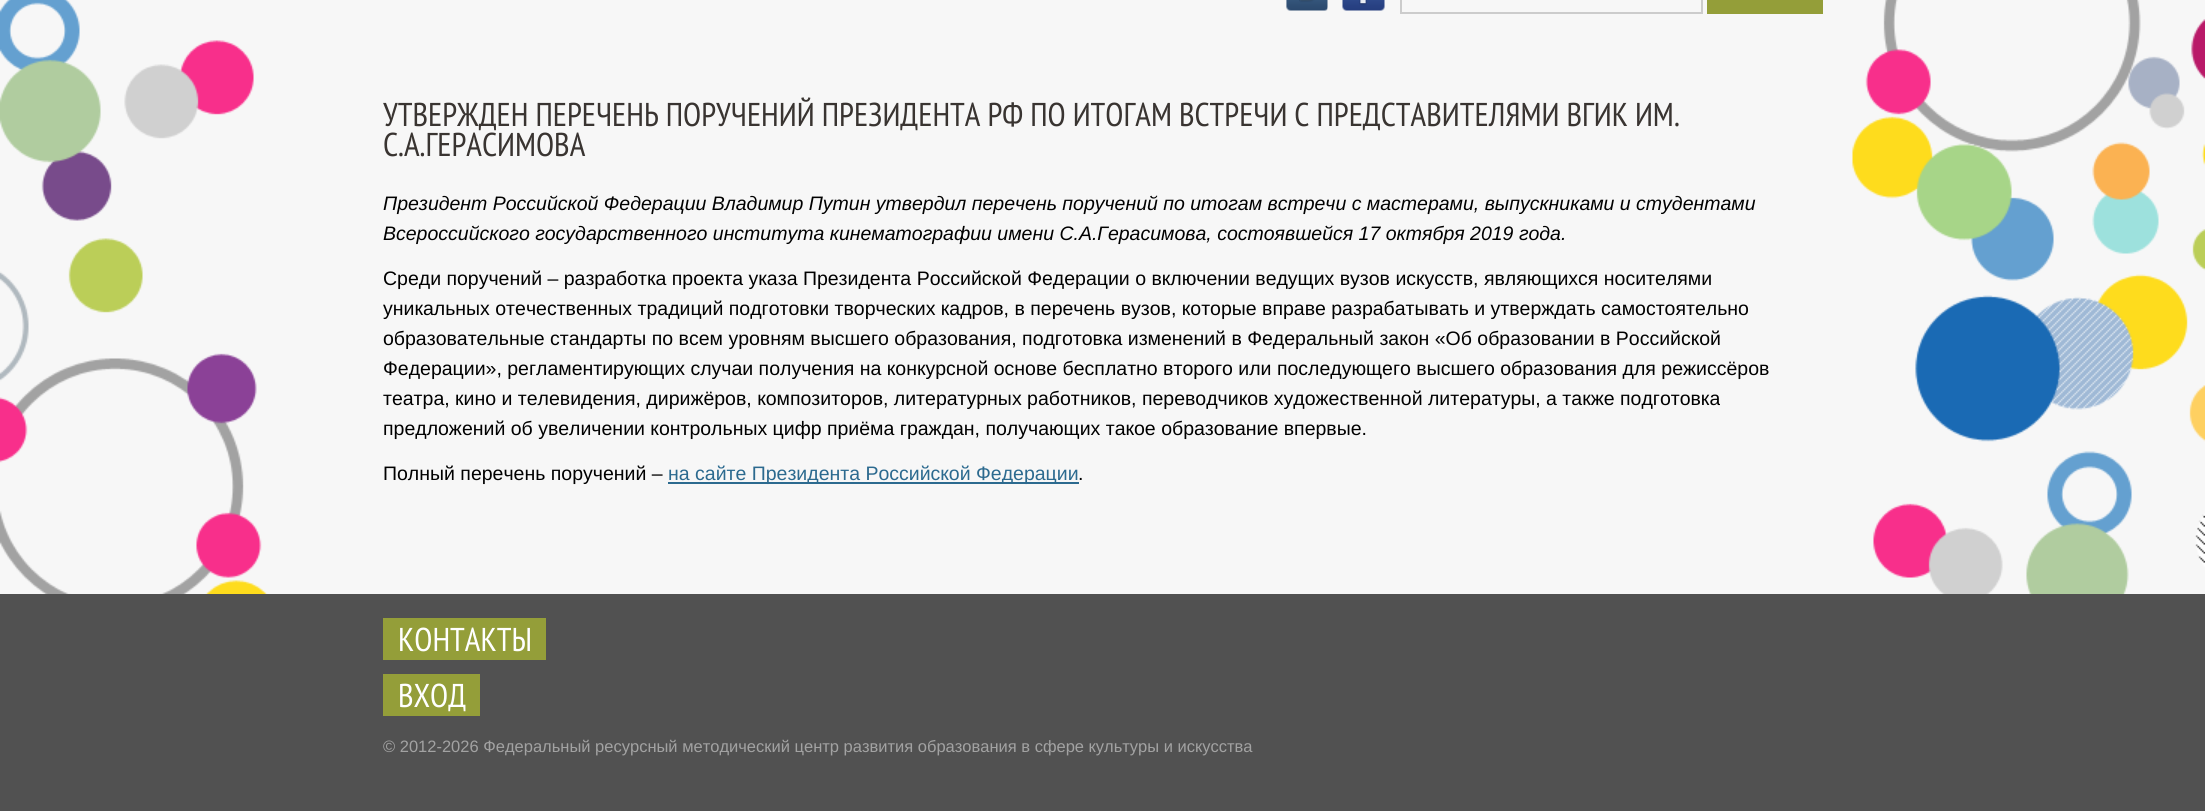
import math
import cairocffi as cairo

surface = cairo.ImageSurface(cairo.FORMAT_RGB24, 2205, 811)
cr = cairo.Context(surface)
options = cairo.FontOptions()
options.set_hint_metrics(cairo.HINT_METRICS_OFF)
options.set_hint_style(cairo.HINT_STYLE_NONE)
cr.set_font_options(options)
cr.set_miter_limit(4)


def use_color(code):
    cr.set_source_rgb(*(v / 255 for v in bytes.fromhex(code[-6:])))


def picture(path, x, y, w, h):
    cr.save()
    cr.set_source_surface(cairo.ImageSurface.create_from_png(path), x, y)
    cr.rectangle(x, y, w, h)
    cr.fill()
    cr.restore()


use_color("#f7f7f7")
cr.paint()
picture("img1.png", 0, 0, 2205, 594)
picture("img2.png", 1286, 0, 42, 11)
picture("img3.png", 1342, 0, 43, 11)
cr.rectangle(1401, -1, 301, 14)
use_color("#cccccc")
cr.stroke()
use_color("#949e39")
cr.rectangle(1707, 0, 116, 14)
cr.fill()
cr.select_font_face("PT Sans Narrow")
cr.set_font_size(33)
use_color("#393431")
cr.move_to(383, 126)
cr.show_text("УТВЕРЖДЕН ПЕРЕЧЕНЬ ПОРУЧЕНИЙ ПРЕЗИДЕНТА РФ ПО ИТОГАМ ВСТРЕЧИ С ПРЕДСТАВИТЕЛЯМИ ВГИК ИМ.")
cr.move_to(383, 156)
cr.show_text("С.А.ГЕРАСИМОВА")
cr.select_font_face("Liberation Sans", cairo.FONT_SLANT_ITALIC)
cr.set_font_size(19.5)
use_color("#000000")
cr.move_to(383, 210)
cr.show_text("Президент Российской Федерации Владимир Путин утвердил перечень поручений по итогам встречи с мастерами, выпускниками и студентами")
cr.move_to(383, 240)
cr.show_text("Всероссийского государственного института кинематографии имени С.А.Герасимова, состоявшейся 17 октября 2019 года.")
cr.select_font_face("Liberation Sans")
cr.move_to(383, 285)
cr.show_text("Среди поручений – разработка проекта указа Президента Российской Федерации о включении ведущих вузов искусств, являющихся носителями")
cr.move_to(383, 315)
cr.show_text("уникальных отечественных традиций подготовки творческих кадров, в перечень вузов, которые вправе разрабатывать и утверждать самостоятельно")
cr.move_to(383, 345)
cr.show_text("образовательные стандарты по всем уровням высшего образования, подготовка изменений в Федеральный закон «Об образовании в Российской")
cr.move_to(383, 375)
cr.show_text("Федерации», регламентирующих случаи получения на конкурсной основе бесплатно второго или последующего высшего образования для режиссёров")
cr.move_to(383, 405)
cr.show_text("театра, кино и телевидения, дирижёров, композиторов, литературных работников, переводчиков художественной литературы, а также подготовка")
cr.move_to(383, 435)
cr.show_text("предложений об увеличении контрольных цифр приёма граждан, получающих такое образование впервые.")
cr.move_to(383, 480)
cr.show_text("Полный перечень поручений –")
use_color("#2c6a8f")
cr.rectangle(668, 482, 411, 2)
cr.fill()
cr.move_to(668, 480)
cr.show_text("на сайте Президента Российской Федерации")
use_color("#000000")
cr.move_to(1078, 480)
cr.show_text(".")
use_color("#515151")
cr.rectangle(0, 594, 2205, 217)
cr.fill()
use_color("#949e39")
cr.rectangle(383, 618, 163, 42)
cr.fill()
cr.select_font_face("PT Sans Narrow")
cr.set_font_size(33)
use_color("#ffffff")
cr.move_to(398, 651)
cr.show_text("КОНТАКТЫ")
use_color("#949e39")
cr.rectangle(383, 674, 97, 42)
cr.fill()
use_color("#ffffff")
cr.move_to(398, 707)
cr.show_text("ВХОД")
cr.select_font_face("Liberation Sans")
cr.set_font_size(16.5)
use_color("#a2a2a2")
cr.move_to(383, 752)
cr.show_text("© 2012-2026 Федеральный ресурсный методический центр развития образования в сфере культуры и искусства")
surface.write_to_png("result.png")
